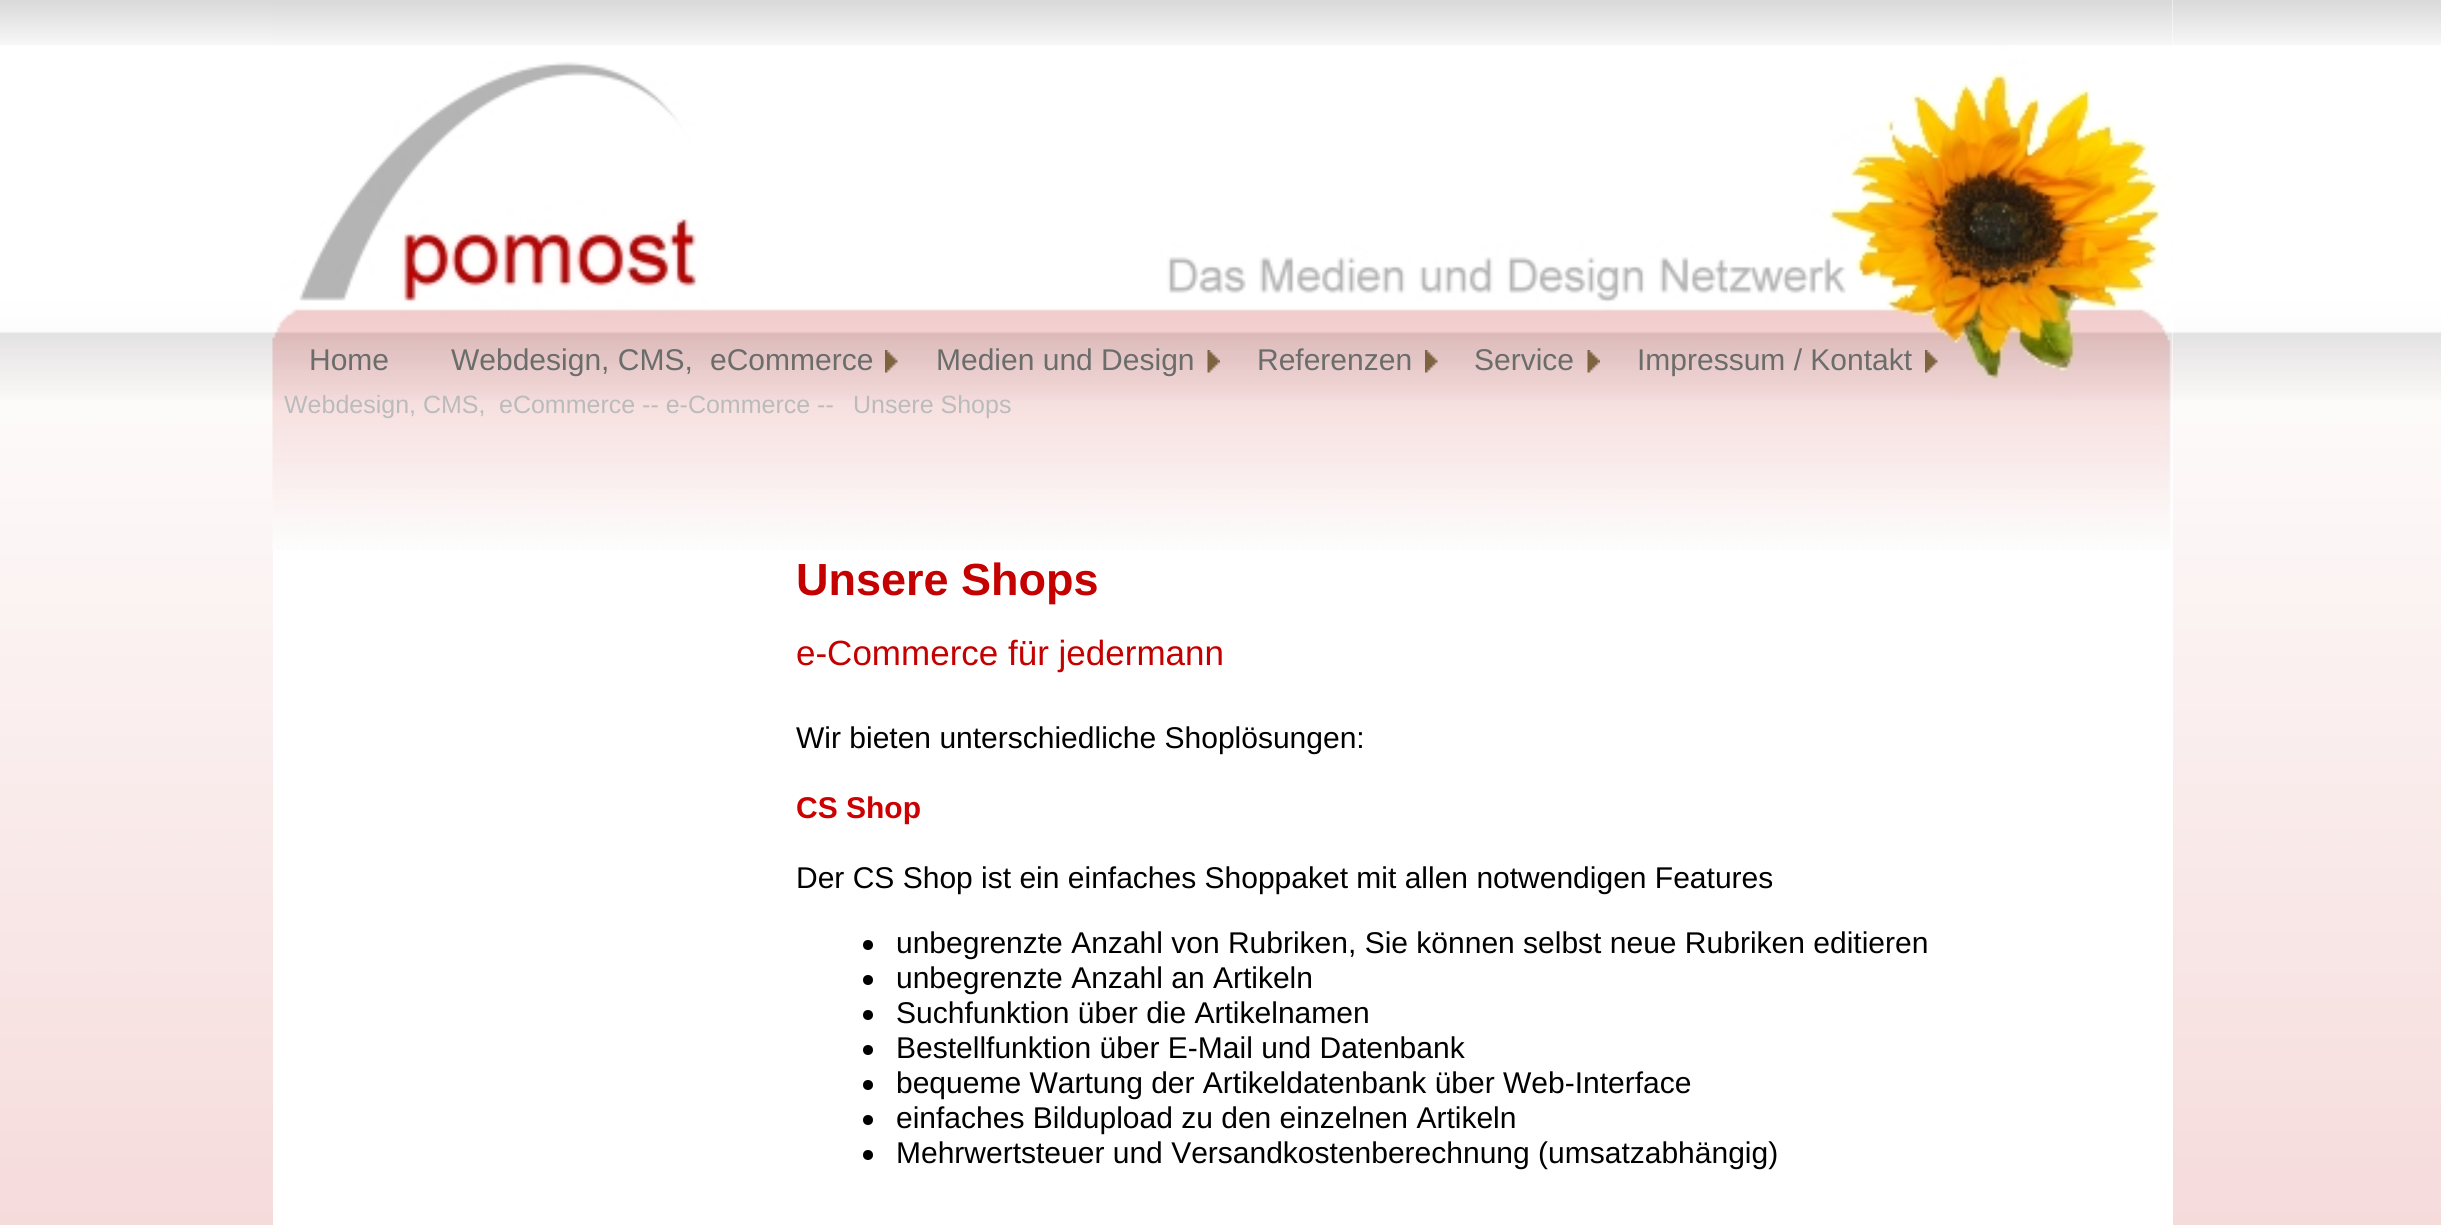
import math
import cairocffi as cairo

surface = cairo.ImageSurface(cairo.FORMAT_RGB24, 2441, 1225)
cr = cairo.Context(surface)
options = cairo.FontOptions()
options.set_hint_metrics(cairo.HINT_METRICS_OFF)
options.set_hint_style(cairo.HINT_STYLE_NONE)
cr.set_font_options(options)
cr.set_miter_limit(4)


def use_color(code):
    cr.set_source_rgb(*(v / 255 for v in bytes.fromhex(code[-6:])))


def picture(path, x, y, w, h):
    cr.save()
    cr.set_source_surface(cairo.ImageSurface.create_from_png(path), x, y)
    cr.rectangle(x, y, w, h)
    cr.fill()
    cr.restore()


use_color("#ffffff")
cr.paint()
picture("img1.png", 0, 0, 2441, 1225)
use_color("#ffffff")
cr.rectangle(273, 0, 1900, 1225)
cr.fill()
picture("img2.png", 272, 0, 1901, 550)
cr.select_font_face("Liberation Sans")
cr.set_font_size(30)
use_color("#6b6d6b")
cr.move_to(309, 370)
cr.show_text("Home")
picture("img3.png", 885, 350, 13, 23)
cr.move_to(451, 370)
cr.show_text("Webdesign, CMS,")
cr.move_to(710, 370)
cr.show_text("eCommerce")
picture("img4.png", 1207, 350, 13, 23)
cr.move_to(936, 370)
cr.show_text("Medien und Design")
picture("img3.png", 1425, 350, 13, 23)
cr.move_to(1257, 370)
cr.show_text("Referenzen")
picture("img5.png", 1587, 350, 13, 23)
cr.move_to(1474, 370)
cr.show_text("Service")
picture("img6.png", 1925, 350, 13, 23)
cr.move_to(1637, 370)
cr.show_text("Impressum / Kontakt")
cr.set_font_size(25)
use_color("#bbbbbb")
cr.move_to(284, 413)
cr.show_text("Webdesign, CMS,")
cr.move_to(499, 413)
cr.show_text("eCommerce -- e-Commerce --")
cr.move_to(853, 413)
cr.show_text("Unsere Shops")
cr.select_font_face("Liberation Sans", cairo.FONT_SLANT_NORMAL, cairo.FONT_WEIGHT_BOLD)
cr.set_font_size(45)
use_color("#c40000")
cr.move_to(796, 595)
cr.show_text("Unsere Shops")
cr.select_font_face("Liberation Sans")
cr.set_font_size(35)
cr.move_to(796, 665)
cr.show_text("e-Commerce für jedermann")
cr.set_font_size(30)
use_color("#000000")
cr.move_to(796, 748)
cr.show_text("Wir bieten unterschiedliche Shoplösungen:")
cr.select_font_face("Liberation Sans", cairo.FONT_SLANT_NORMAL, cairo.FONT_WEIGHT_BOLD)
use_color("#cc0000")
cr.move_to(796, 818)
cr.show_text("CS Shop")
cr.select_font_face("Liberation Sans")
use_color("#000000")
cr.move_to(796, 888)
cr.show_text("Der CS Shop ist ein einfaches Shoppaket mit allen notwendigen Features")
cr.new_path()
cr.arc(868, 945, 5, 0, 2 * math.pi)
cr.fill()
cr.move_to(896, 953)
cr.show_text("unbegrenzte Anzahl von Rubriken, Sie können selbst neue Rubriken editieren")
cr.new_path()
cr.arc(868, 980, 5, 0, 2 * math.pi)
cr.fill()
cr.move_to(896, 988)
cr.show_text("unbegrenzte Anzahl an Artikeln")
cr.new_path()
cr.arc(868, 1015, 5, 0, 2 * math.pi)
cr.fill()
cr.move_to(896, 1023)
cr.show_text("Suchfunktion über die Artikelnamen")
cr.new_path()
cr.arc(868, 1050, 5, 0, 2 * math.pi)
cr.fill()
cr.move_to(896, 1058)
cr.show_text("Bestellfunktion über E-Mail und Datenbank")
cr.new_path()
cr.arc(868, 1085, 5, 0, 2 * math.pi)
cr.fill()
cr.move_to(896, 1093)
cr.show_text("bequeme Wartung der Artikeldatenbank über Web-Interface")
cr.new_path()
cr.arc(868, 1120, 5, 0, 2 * math.pi)
cr.fill()
cr.move_to(896, 1128)
cr.show_text("einfaches Bildupload zu den einzelnen Artikeln")
cr.new_path()
cr.arc(868, 1155, 5, 0, 2 * math.pi)
cr.fill()
cr.move_to(896, 1163)
cr.show_text("Mehrwertsteuer und Versandkostenberechnung (umsatzabhängig)")
surface.write_to_png("result.png")
